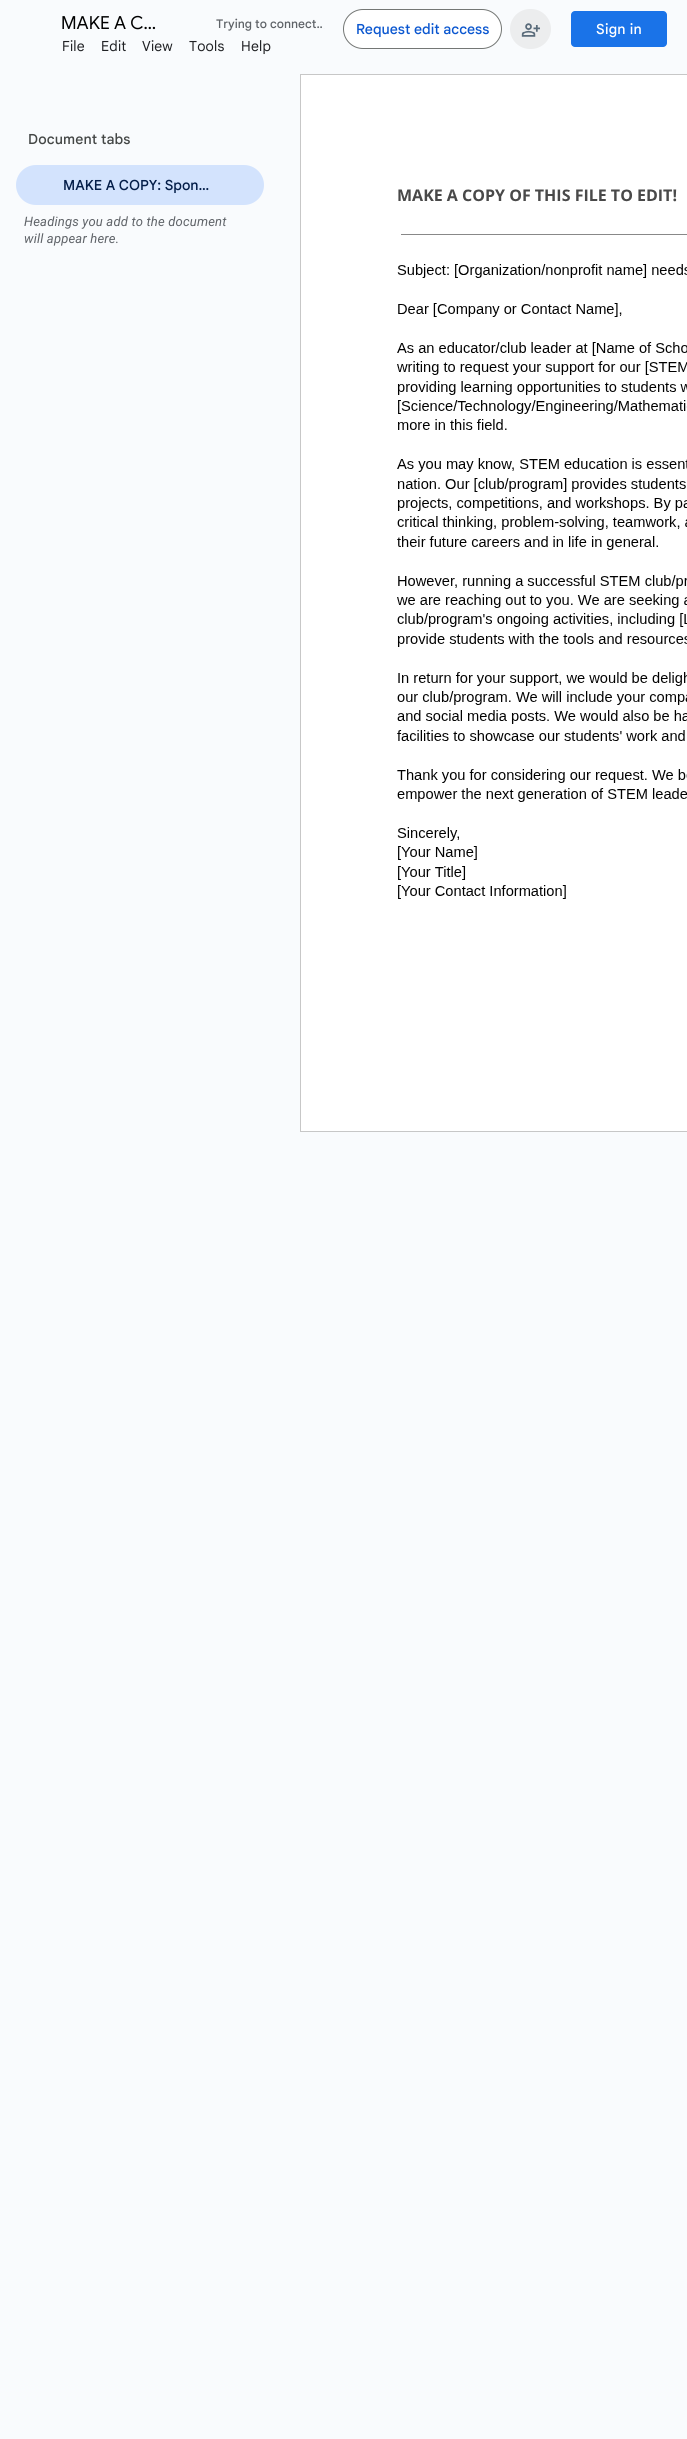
import math
import cairocffi as cairo

surface = cairo.ImageSurface(cairo.FORMAT_RGB24, 687, 2439)
cr = cairo.Context(surface)
options = cairo.FontOptions()
options.set_hint_metrics(cairo.HINT_METRICS_OFF)
options.set_hint_style(cairo.HINT_STYLE_NONE)
cr.set_font_options(options)
cr.set_miter_limit(4)


def use_color(code):
    cr.set_source_rgb(*(v / 255 for v in bytes.fromhex(code[-6:])))


def spaced_text(x, y, s, letter, word):
    cr.move_to(x, y)
    for ch in s:
        cr.show_text(ch)
        cr.rel_move_to(letter + word * (ch == ' '), 0)


def round_rect(x, y, w, h, r):
    cr.new_sub_path()
    for i, (u, v) in enumerate([(x + w - r, y + h - r), (x + r, y + h - r), (x + r, y + r), (x + w - r, y + r)]):
        cr.arc(u, v, r, i * math.pi / 2, (i + 1) * math.pi / 2)
    cr.close_path()


def picture(path, x, y, w, h):
    cr.save()
    cr.set_source_surface(cairo.ImageSurface.create_from_png(path), x, y)
    cr.rectangle(x, y, w, h)
    cr.fill()
    cr.restore()


use_color("#f9fbfd")
cr.paint()
cr.select_font_face("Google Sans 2")
cr.set_font_size(18)
use_color("#000000")
cr.move_to(61, 29)
cr.show_text("MAKE A C…")
cr.select_font_face("Google Sans Medium")
cr.set_font_size(12)
use_color("#5f6368")
cr.move_to(216, 28)
cr.show_text("Trying to connect…")
use_color("#f9fbfd")
cr.rectangle(323, 26, 2, 2)
cr.fill()
use_color("#ffffff")
round_rect(343.5, 9.5, 158, 39, 19.5)
cr.fill_preserve()
use_color("#747775")
cr.set_line_width(1)
cr.stroke()
cr.set_font_size(14)
use_color("#0b57d0")
cr.move_to(356, 34)
cr.show_text("Request edit access")
use_color("#ecedee")
round_rect(510, 9, 41, 40, 20)
cr.fill()
picture("img1.png", 521, 23, 19, 14)
use_color("#1a73e8")
round_rect(571, 11, 96, 36, 4)
cr.fill()
use_color("#ffffff")
spaced_text(596, 34, "Sign in", 0.25, 0)
cr.select_font_face("Google Sans")
use_color("#202124")
spaced_text(62, 51, "File", 0.2, 0)
spaced_text(101, 51, "Edit", 0.2, 0)
spaced_text(142, 51, "View", 0.2, 0)
spaced_text(189, 51, "Tools", 0.2, 0)
spaced_text(241, 51, "Help", 0.2, 0)
cr.select_font_face("Google Sans Medium")
use_color("#444746")
spaced_text(28, 144, "Document tabs", 0.1, 0)
use_color("#d3e3fd")
round_rect(16, 165, 248, 40, 20)
cr.fill()
use_color("#041e49")
cr.move_to(63, 190)
cr.show_text("MAKE A COPY: Spon…")
cr.select_font_face("Roboto", cairo.FONT_SLANT_ITALIC)
cr.set_font_size(13)
use_color("#5f6368")
spaced_text(24, 226, "Headings you add to the document", 0.2, 0)
spaced_text(24, 243, "will appear here.", 0.2, 0)
cr.rectangle(300.5, 74.5, 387, 1057)
use_color("#c7c7c7")
cr.stroke()
picture("img2.png", 301, 75, 386, 1056)
surface.write_to_png("result.png")
